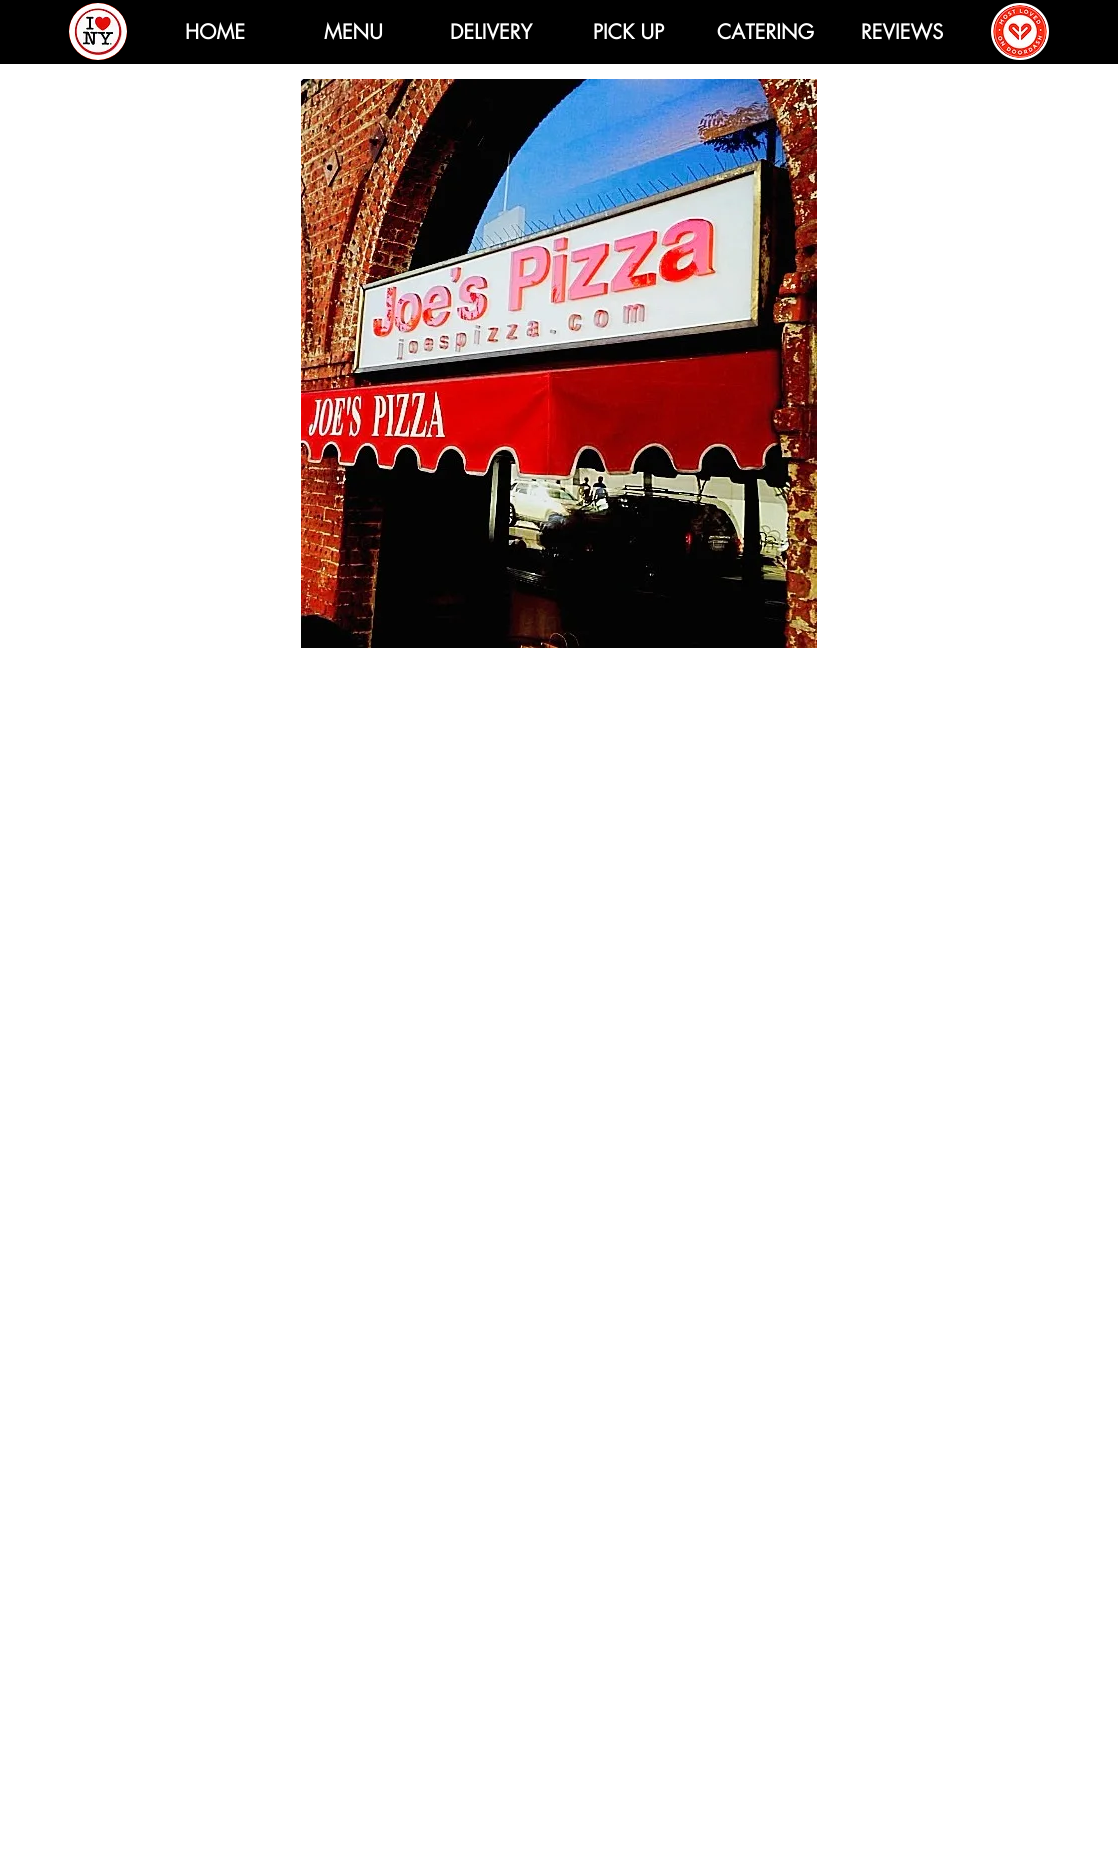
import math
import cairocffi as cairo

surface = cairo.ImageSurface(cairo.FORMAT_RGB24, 1118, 1861)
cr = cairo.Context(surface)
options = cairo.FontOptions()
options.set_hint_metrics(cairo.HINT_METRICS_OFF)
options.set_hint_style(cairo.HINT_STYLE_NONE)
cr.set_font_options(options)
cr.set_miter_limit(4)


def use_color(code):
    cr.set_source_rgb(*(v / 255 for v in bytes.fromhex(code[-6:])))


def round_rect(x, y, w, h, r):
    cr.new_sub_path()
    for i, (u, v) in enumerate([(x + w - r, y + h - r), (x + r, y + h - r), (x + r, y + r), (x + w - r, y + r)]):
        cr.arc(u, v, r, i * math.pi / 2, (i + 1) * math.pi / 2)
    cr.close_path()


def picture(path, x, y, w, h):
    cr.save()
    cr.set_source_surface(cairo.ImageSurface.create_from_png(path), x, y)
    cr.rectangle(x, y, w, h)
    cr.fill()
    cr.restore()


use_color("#ffffff")
cr.paint()
use_color("#000000")
cr.rectangle(0, 0, 1118, 64)
cr.fill()
use_color("#f01c00")
round_rect(69, 3, 58, 57, 28.5)
cr.fill()
picture("img1.png", 69, 3, 58, 57)
cr.select_font_face("futura", cairo.FONT_SLANT_NORMAL, cairo.FONT_WEIGHT_BOLD)
cr.set_font_size(20)
use_color("#ffffff")
cr.move_to(185, 39)
cr.show_text("HOME")
cr.move_to(324, 39)
cr.show_text("MENU")
cr.move_to(450, 39)
cr.show_text("DELIVERY")
cr.move_to(593, 39)
cr.show_text("PICK UP")
cr.move_to(717, 39)
cr.show_text("CATERING")
cr.move_to(861, 39)
cr.show_text("REVIEWS")
round_rect(992, 4, 56, 55, 27.5)
cr.fill_preserve()
cr.stroke()
picture("img2.png", 993, 5, 54, 53)
picture("img3.png", 301, 79, 516, 569)
surface.write_to_png("result.png")
